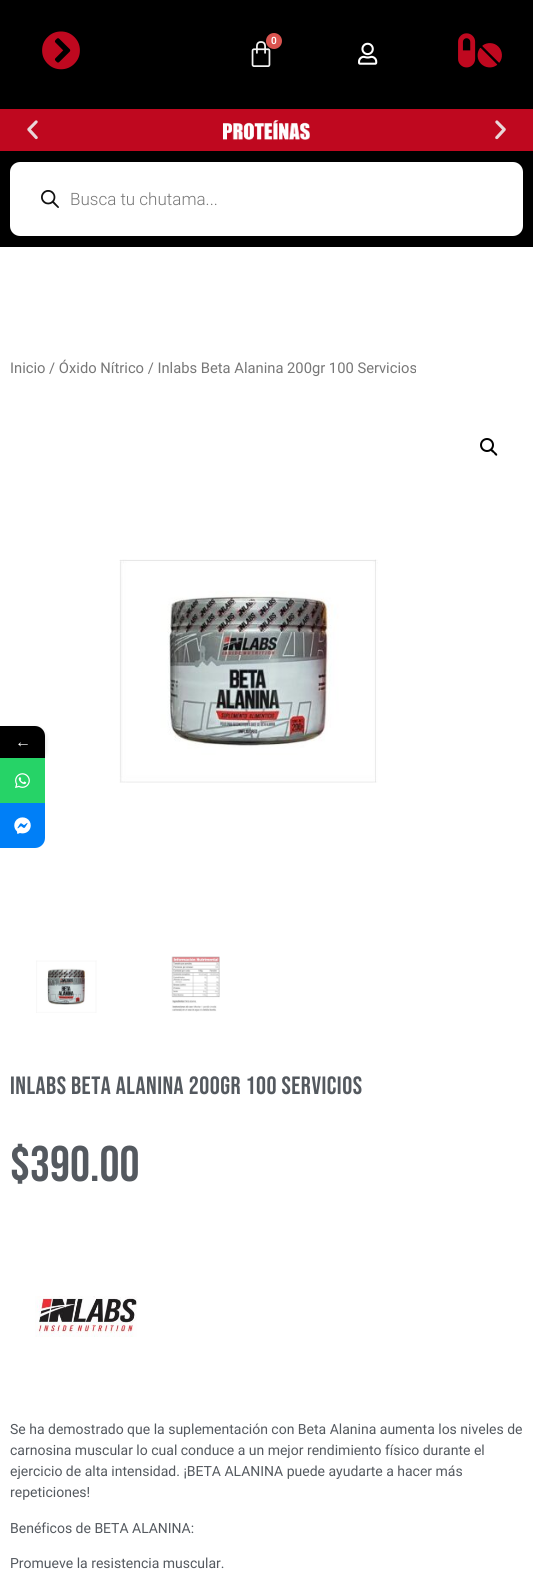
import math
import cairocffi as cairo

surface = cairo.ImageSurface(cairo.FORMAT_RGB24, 533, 1573)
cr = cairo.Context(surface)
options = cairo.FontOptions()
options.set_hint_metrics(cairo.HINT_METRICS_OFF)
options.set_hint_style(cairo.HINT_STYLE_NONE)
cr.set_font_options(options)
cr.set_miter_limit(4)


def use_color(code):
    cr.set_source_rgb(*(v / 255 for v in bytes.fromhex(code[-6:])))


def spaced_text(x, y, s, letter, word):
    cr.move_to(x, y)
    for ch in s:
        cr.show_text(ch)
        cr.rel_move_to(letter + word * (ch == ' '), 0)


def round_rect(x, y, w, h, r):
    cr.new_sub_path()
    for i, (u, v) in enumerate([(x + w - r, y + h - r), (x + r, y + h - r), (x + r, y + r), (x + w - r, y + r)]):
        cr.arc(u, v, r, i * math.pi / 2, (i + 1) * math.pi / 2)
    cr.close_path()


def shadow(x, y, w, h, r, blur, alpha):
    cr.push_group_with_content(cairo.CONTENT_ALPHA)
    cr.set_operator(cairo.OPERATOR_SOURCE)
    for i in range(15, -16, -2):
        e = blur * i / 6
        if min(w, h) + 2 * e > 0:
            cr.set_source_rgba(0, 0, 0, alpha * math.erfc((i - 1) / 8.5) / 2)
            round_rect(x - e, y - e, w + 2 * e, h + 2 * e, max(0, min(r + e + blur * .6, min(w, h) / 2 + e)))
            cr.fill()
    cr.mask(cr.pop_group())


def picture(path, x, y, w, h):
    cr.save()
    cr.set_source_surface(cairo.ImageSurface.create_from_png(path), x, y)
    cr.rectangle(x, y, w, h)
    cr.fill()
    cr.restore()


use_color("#ffffff")
cr.paint()
use_color("#000000")
cr.rectangle(0, 0, 533, 109)
cr.fill()
picture("img1.png", 42, 31, 38, 39)
picture("img2.png", 251, 41, 20, 26)
use_color("#d9534f")
cr.arc(274, 41, 8, 0, 2 * math.pi)
cr.fill()
cr.select_font_face("Roboto SemiBold")
cr.set_font_size(10)
use_color("#ffffff")
cr.move_to(271, 44)
cr.show_text("0")
picture("img3.png", 458, 33, 44, 35)
picture("img4.png", 358, 42, 20, 23)
use_color("#bf081f")
cr.rectangle(0, 109, 533, 42)
cr.fill()
picture("img5.png", 27, 120, 11, 20)
picture("img6.png", 223, 120, 87, 20)
picture("img7.png", 495, 120, 11, 20)
use_color("#000000")
cr.rectangle(0, 151, 533, 96)
cr.fill()
use_color("#ffffff")
round_rect(10, 162, 513, 74, 10)
cr.fill()
picture("img8.png", 41, 190, 18, 18)
cr.select_font_face("Roboto Light")
cr.set_font_size(17)
use_color("#777777")
cr.move_to(70, 205)
cr.show_text("Busca tu chutama...")
cr.select_font_face("Roboto")
cr.set_font_size(14.75)
cr.move_to(10, 373)
cr.show_text("Inicio / Óxido Nítrico / Inlabs Beta Alanina 200gr 100 Servicios")
cr.new_path()
cr.arc(487, 445, 6, 0, 2 * math.pi)
use_color("#000000")
cr.stroke()
cr.new_path()
cr.move_to(491, 449.5)
cr.curve_to(492.5, 448.5, 494, 451, 494.5, 451.5)
cr.curve_to(495.5, 452.5, 498, 454, 497, 455.5)
cr.curve_to(495.5, 456.5, 494, 453.5, 493.5, 453)
cr.curve_to(492.5, 452.5, 490, 451, 491, 449.5)
cr.close_path()
cr.fill()
picture("img9.png", 119, 559, 259, 224)
picture("img10.png", 36, 960, 61, 53)
picture("img11.png", 171, 956, 49, 56)
cr.select_font_face("Bebas Neue")
cr.set_font_size(25)
use_color("#54595f")
spaced_text(10, 1094, "Inlabs Beta Alanina 200gr 100 Servicios", 0.5, 0)
cr.set_font_size(50)
cr.move_to(10, 1181)
cr.show_text("$390.00")
picture("img12.png", 35, 1296, 102, 41)
cr.select_font_face("Roboto")
cr.set_font_size(14)
cr.move_to(10, 1434)
cr.show_text("Se ha demostrado que la suplementación con Beta Alanina aumenta los niveles de")
cr.move_to(10, 1455)
cr.show_text("carnosina muscular lo cual conduce a un mejor rendimiento físico durante el")
cr.move_to(10, 1476)
cr.show_text("ejercicio de alta intensidad. ¡BETA ALANINA puede ayudarte a hacer más")
cr.move_to(10, 1497)
cr.show_text("repeticiones!")
cr.move_to(10, 1533)
cr.show_text("Benéficos de BETA ALANINA:")
cr.move_to(10, 1568)
cr.show_text("Promueve la resistencia muscular.")
use_color("#000000")
shadow(0, 729, 45, 32, 10, 3, 0.16)
use_color("#000000")
cr.new_path()
cr.move_to(0, 726)
cr.line_to(35, 726)
cr.curve_to(40.5, 726, 45, 730.5, 45, 736)
cr.line_to(45, 758)
cr.line_to(0, 758)
cr.close_path()
cr.fill()
cr.select_font_face("Liberation Serif")
cr.set_font_size(16)
use_color("#ffffff")
cr.move_to(15, 747)
cr.show_text("←")
use_color("#26d367")
cr.rectangle(0, 758, 45, 45)
cr.fill()
picture("img13.png", 15, 773, 15, 15)
use_color("#007ff7")
cr.new_path()
cr.move_to(0, 803)
cr.line_to(45, 803)
cr.line_to(45, 838)
cr.curve_to(45, 843.5, 40.5, 848, 35, 848)
cr.line_to(0, 848)
cr.close_path()
cr.fill()
picture("img14.png", 14, 817, 17, 17)
surface.write_to_png("result.png")
